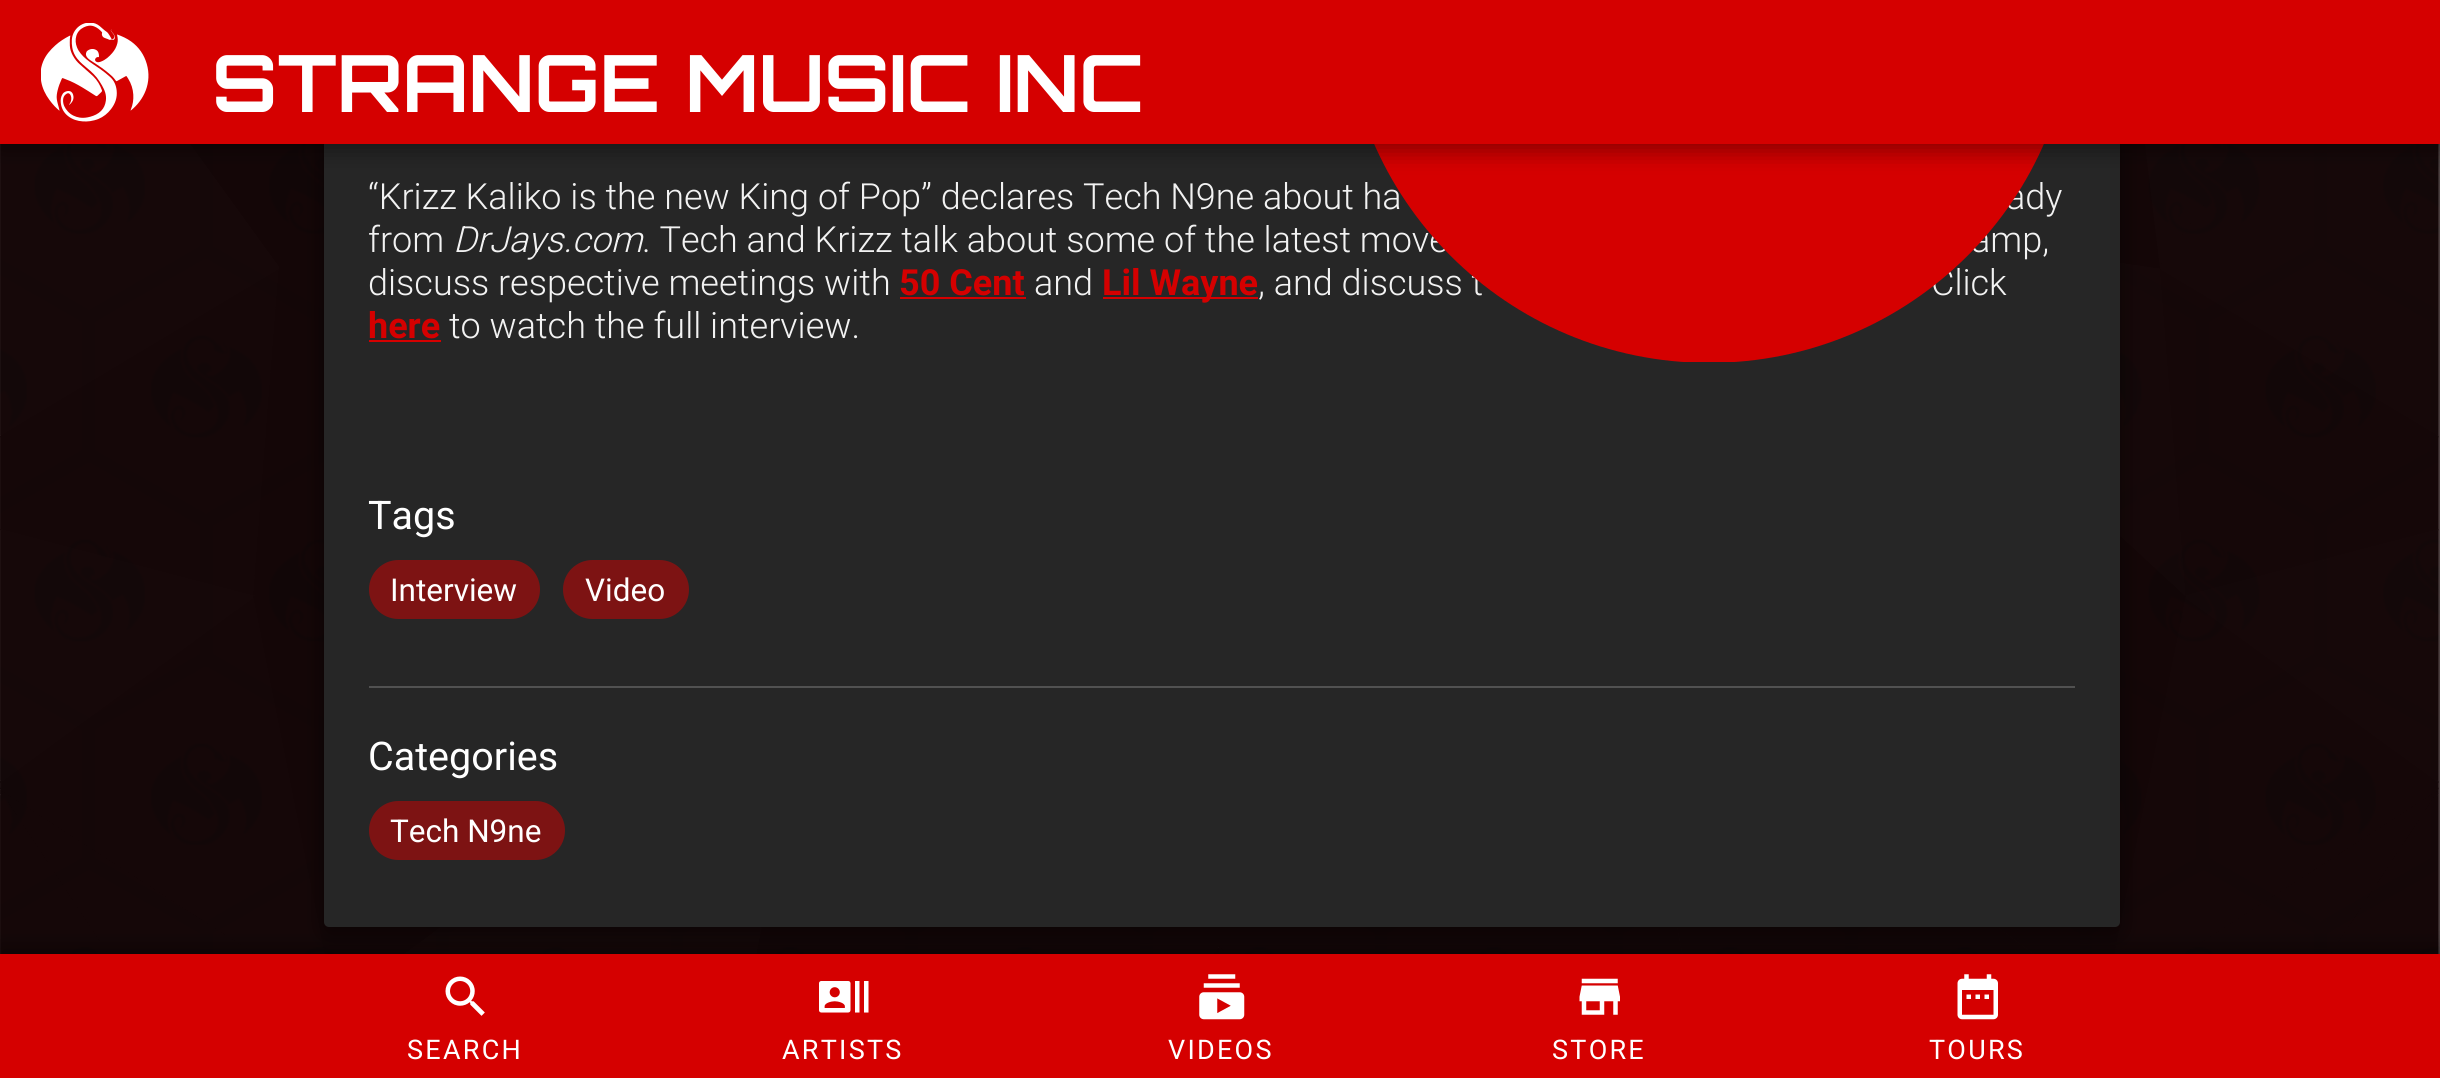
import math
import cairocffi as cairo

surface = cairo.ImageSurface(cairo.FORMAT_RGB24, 2440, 1078)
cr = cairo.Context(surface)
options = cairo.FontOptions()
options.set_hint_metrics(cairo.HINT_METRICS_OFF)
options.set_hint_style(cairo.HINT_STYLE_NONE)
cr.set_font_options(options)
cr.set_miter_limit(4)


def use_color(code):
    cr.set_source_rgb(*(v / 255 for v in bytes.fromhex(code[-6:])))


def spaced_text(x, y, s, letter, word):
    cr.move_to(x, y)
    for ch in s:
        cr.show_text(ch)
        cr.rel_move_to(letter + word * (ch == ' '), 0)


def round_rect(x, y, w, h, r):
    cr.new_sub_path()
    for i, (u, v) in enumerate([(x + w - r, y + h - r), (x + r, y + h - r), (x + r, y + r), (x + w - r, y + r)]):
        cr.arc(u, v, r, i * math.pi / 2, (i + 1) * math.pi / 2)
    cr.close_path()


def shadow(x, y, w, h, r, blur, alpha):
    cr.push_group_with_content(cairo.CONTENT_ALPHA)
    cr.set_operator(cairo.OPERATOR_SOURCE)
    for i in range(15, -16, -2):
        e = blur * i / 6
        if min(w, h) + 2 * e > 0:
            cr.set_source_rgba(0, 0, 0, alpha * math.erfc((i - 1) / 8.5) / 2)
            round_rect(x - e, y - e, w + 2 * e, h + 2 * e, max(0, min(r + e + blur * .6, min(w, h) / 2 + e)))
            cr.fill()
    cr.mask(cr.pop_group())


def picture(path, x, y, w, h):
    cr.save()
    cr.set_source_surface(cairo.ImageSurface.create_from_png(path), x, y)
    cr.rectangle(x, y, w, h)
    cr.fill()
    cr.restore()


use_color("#ffffff")
cr.paint()
picture("img1.png", 0, 144, 2440, 810)
picture("img8.png", 0, 144, 2440, 810)
use_color("#000000")
shadow(324, -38, 1796, 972, 5, 11, 0.5)
use_color("#262626")
round_rect(324, -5, 1796, 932, 5)
cr.fill()
cr.select_font_face("Roboto Light")
cr.set_font_size(36)
use_color("#f2f2f2")
cr.move_to(368, 209)
cr.show_text("“Krizz Kaliko is the new King of Pop” declares Tech N9ne about ha")
cr.move_to(2006, 209)
cr.show_text("ady")
cr.move_to(642, 252)
cr.show_text(". Tech and Krizz talk about some of the latest move")
cr.move_to(1971, 252)
cr.show_text("amp,")
cr.move_to(1258, 295)
cr.show_text(", and discuss t")
cr.move_to(1931, 295)
cr.show_text("Click")
picture("img9.png", 1374, 144, 670, 218)
use_color("#000000")
shadow(0, 7, 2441, 144, 0, 11, 0.23)
shadow(0, 7, 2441, 144, 0, 11, 0.16)
use_color("#d50000")
cr.rectangle(0, 0, 2440, 144)
cr.fill()
picture("img2.png", 41, 23, 108, 99)
cr.select_font_face("Orbitron", cairo.FONT_SLANT_NORMAL, cairo.FONT_WEIGHT_BOLD)
cr.set_font_size(79)
use_color("#ffffff")
spaced_text(212, 112, "STRANGE MUSIC INC", 0, 1)
use_color("#000000")
shadow(0, 947, 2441, 126, 0, 11, 0.23)
shadow(0, 947, 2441, 126, 0, 11, 0.16)
use_color("#d50000")
cr.rectangle(0, 954, 2440, 124)
cr.fill()
picture("img3.png", 445, 976, 40, 40)
cr.select_font_face("Roboto")
cr.set_font_size(27)
use_color("#ffffff")
spaced_text(407, 1059, "SEARCH", 2.25, 0)
picture("img4.png", 819, 981, 50, 32)
spaced_text(782, 1059, "ARTISTS", 2.25, 0)
picture("img5.png", 1199, 974, 46, 46)
spaced_text(1168, 1059, "VIDEOS", 2.25, 0)
picture("img6.png", 1579, 978, 41, 37)
spaced_text(1552, 1059, "STORE", 2.25, 0)
picture("img7.png", 1957, 974, 41, 46)
spaced_text(1929, 1059, "TOURS", 2.25, 0)
cr.select_font_face("Roboto Light")
cr.set_font_size(36)
use_color("#f2f2f2")
cr.move_to(368, 252)
cr.show_text("from")
cr.select_font_face("Roboto Light", cairo.FONT_SLANT_ITALIC)
cr.move_to(453, 252)
cr.show_text("DrJays.com")
cr.select_font_face("Roboto Light")
cr.move_to(368, 295)
cr.show_text("discuss respective meetings with")
cr.select_font_face("Roboto", cairo.FONT_SLANT_NORMAL, cairo.FONT_WEIGHT_BOLD)
use_color("#d50000")
cr.move_to(899, 295)
cr.show_text("50 Cent")
cr.rectangle(900, 297, 126, 2)
cr.fill()
cr.select_font_face("Roboto Light")
use_color("#f2f2f2")
cr.move_to(1034, 295)
cr.show_text("and")
use_color("#d50000")
cr.rectangle(1103, 297, 155, 2)
cr.fill()
cr.select_font_face("Roboto", cairo.FONT_SLANT_NORMAL, cairo.FONT_WEIGHT_BOLD)
cr.move_to(1102, 295)
cr.show_text("Lil Wayne")
cr.move_to(368, 338)
cr.show_text("here")
cr.rectangle(369, 340, 72, 2)
cr.fill()
cr.select_font_face("Roboto Light")
use_color("#f2f2f2")
cr.move_to(449, 338)
cr.show_text("to watch the full interview.")
cr.select_font_face("Roboto")
cr.set_font_size(39.5)
use_color("#ffffff")
cr.move_to(368, 529)
cr.show_text("Tags")
cr.set_source_rgba(0.835, 0, 0, 0.5)
round_rect(369, 560, 171, 59, 29.5)
cr.fill()
cr.set_font_size(31.5)
use_color("#ffffff")
cr.move_to(390, 601)
cr.show_text("Interview")
cr.set_source_rgba(0.835, 0, 0, 0.5)
round_rect(563, 560, 126, 59, 29.5)
cr.fill()
use_color("#ffffff")
cr.move_to(585, 601)
cr.show_text("Video")
use_color("#515151")
cr.rectangle(369, 686, 1706, 2)
cr.fill()
cr.set_font_size(39.5)
use_color("#ffffff")
cr.move_to(368, 770)
cr.show_text("Categories")
cr.set_source_rgba(0.835, 0, 0, 0.5)
round_rect(369, 801, 196, 59, 29.5)
cr.fill()
cr.set_font_size(31.5)
use_color("#ffffff")
cr.move_to(390, 842)
cr.show_text("Tech N9ne")
surface.write_to_png("result.png")
